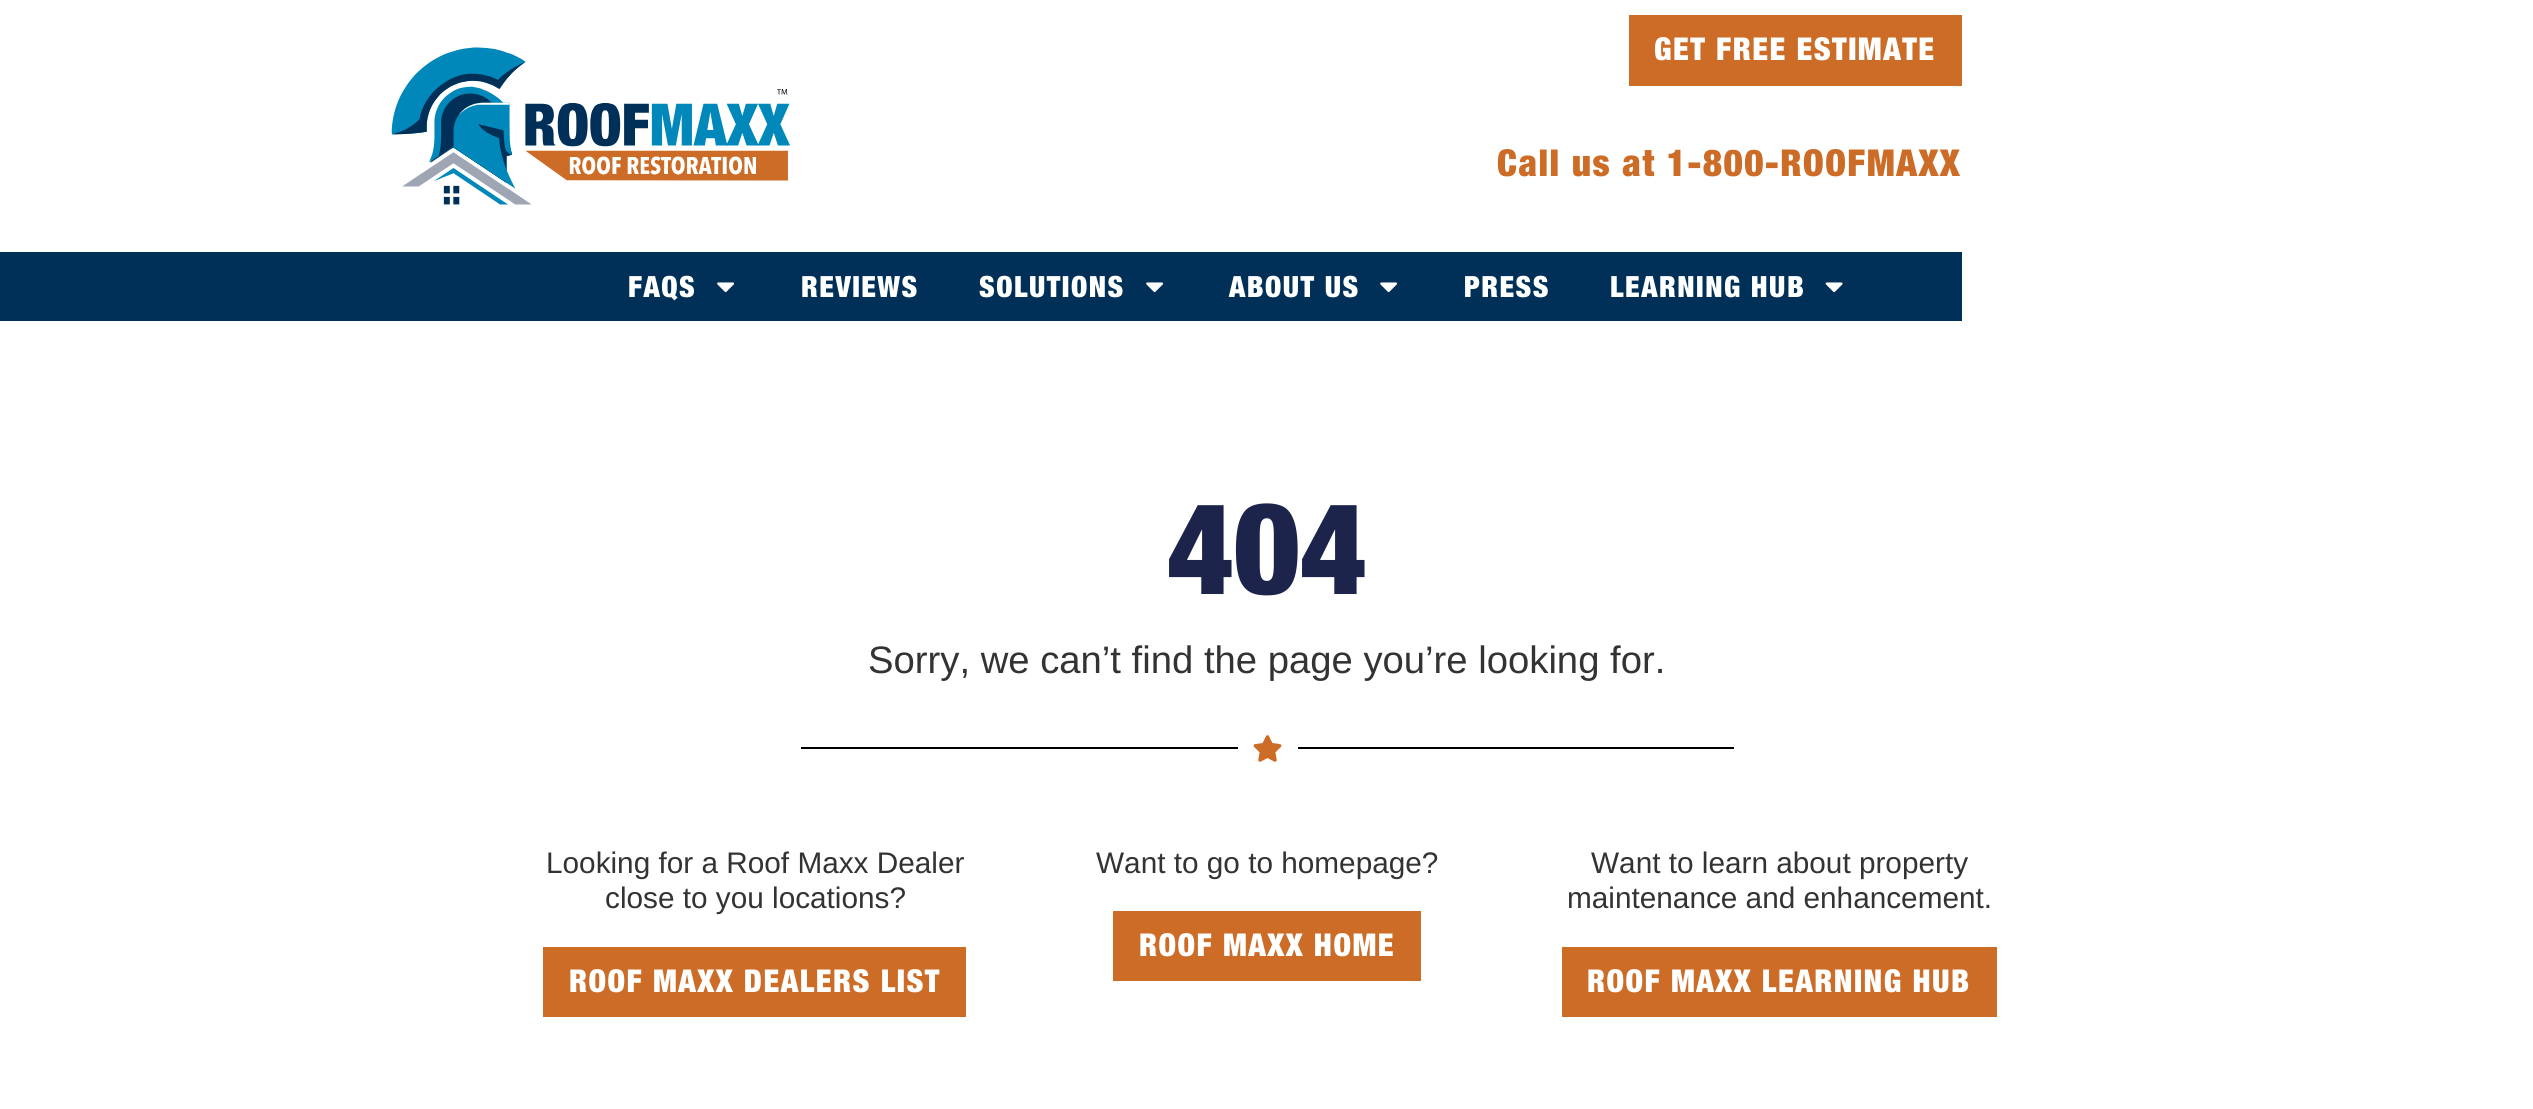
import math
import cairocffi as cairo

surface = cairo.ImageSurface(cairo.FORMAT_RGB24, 2533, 1109)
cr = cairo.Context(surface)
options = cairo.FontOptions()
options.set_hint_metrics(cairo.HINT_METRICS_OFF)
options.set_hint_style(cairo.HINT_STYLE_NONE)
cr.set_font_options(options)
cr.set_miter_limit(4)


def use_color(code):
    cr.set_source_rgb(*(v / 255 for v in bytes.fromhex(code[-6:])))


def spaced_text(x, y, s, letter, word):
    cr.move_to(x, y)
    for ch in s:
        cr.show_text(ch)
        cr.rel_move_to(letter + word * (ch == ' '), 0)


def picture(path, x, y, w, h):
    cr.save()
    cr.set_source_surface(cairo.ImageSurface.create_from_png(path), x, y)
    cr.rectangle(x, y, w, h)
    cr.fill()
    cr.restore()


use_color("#ffffff")
cr.paint()
picture("img1.png", 391, 47, 399, 158)
use_color("#cc6c27")
cr.rectangle(1629, 15, 333, 71)
cr.fill()
cr.select_font_face("Helvetica Neue Black")
cr.set_font_size(31.5)
use_color("#ffffff")
spaced_text(1654, 60, "GET FREE ESTIMATE", 1.5, 0)
cr.set_font_size(37.1)
use_color("#cc6c27")
spaced_text(1497, 176, "Call us at 1-800-ROOFMAXX", 1.5, 0)
use_color("#003057")
cr.rectangle(0, 252, 1962, 69)
cr.fill()
cr.set_font_size(29.25)
use_color("#ffffff")
spaced_text(628, 297, "FAQS", 1.5, 0)
picture("img2.png", 717, 282, 18, 11)
spaced_text(801, 297, "REVIEWS", 1.5, 0)
spaced_text(979, 297, "SOLUTIONS", 1.5, 0)
picture("img2.png", 1146, 282, 18, 11)
spaced_text(1229, 297, "ABOUT US", 1.5, 0)
picture("img2.png", 1380, 282, 18, 11)
spaced_text(1464, 297, "PRESS", 1.5, 0)
spaced_text(1610, 297, "LEARNING HUB", 1.5, 0)
picture("img3.png", 1825, 282, 18, 11)
cr.set_font_size(128)
use_color("#1c244b")
cr.move_to(1167, 594)
cr.show_text("404")
cr.select_font_face("Liberation Sans")
cr.set_font_size(38.25)
use_color("#333333")
cr.move_to(868, 673)
cr.show_text("Sorry, we can’t find the page you’re looking for.")
use_color("#000000")
cr.rectangle(801, 747, 437, 2)
cr.fill()
picture("img4.png", 1253, 735, 29, 27)
cr.rectangle(1298, 747, 436, 2)
cr.fill()
cr.set_font_size(29.75)
use_color("#333333")
cr.move_to(546, 873)
cr.show_text("Looking for a Roof Maxx Dealer")
cr.move_to(605, 908)
cr.show_text("close to you locations?")
use_color("#cc6c27")
cr.rectangle(543, 947, 423, 70)
cr.fill()
cr.select_font_face("Helvetica Neue Black")
cr.set_font_size(31.5)
use_color("#ffffff")
spaced_text(569, 992, "ROOF MAXX DEALERS LIST", 1.5, 0)
cr.select_font_face("Liberation Sans")
cr.set_font_size(29.75)
use_color("#333333")
cr.move_to(1096, 873)
cr.show_text("Want to go to homepage?")
use_color("#cc6c27")
cr.rectangle(1113, 911, 308, 70)
cr.fill()
cr.select_font_face("Helvetica Neue Black")
cr.set_font_size(31.5)
use_color("#ffffff")
spaced_text(1139, 956, "ROOF MAXX HOME", 1.5, 0)
cr.select_font_face("Liberation Sans")
cr.set_font_size(29.75)
use_color("#333333")
cr.move_to(1591, 873)
cr.show_text("Want to learn about property")
cr.move_to(1567, 908)
cr.show_text("maintenance and enhancement.")
use_color("#cc6c27")
cr.rectangle(1562, 947, 435, 70)
cr.fill()
cr.select_font_face("Helvetica Neue Black")
cr.set_font_size(31.5)
use_color("#ffffff")
spaced_text(1587, 992, "ROOF MAXX LEARNING HUB", 1.5, 0)
surface.write_to_png("result.png")
